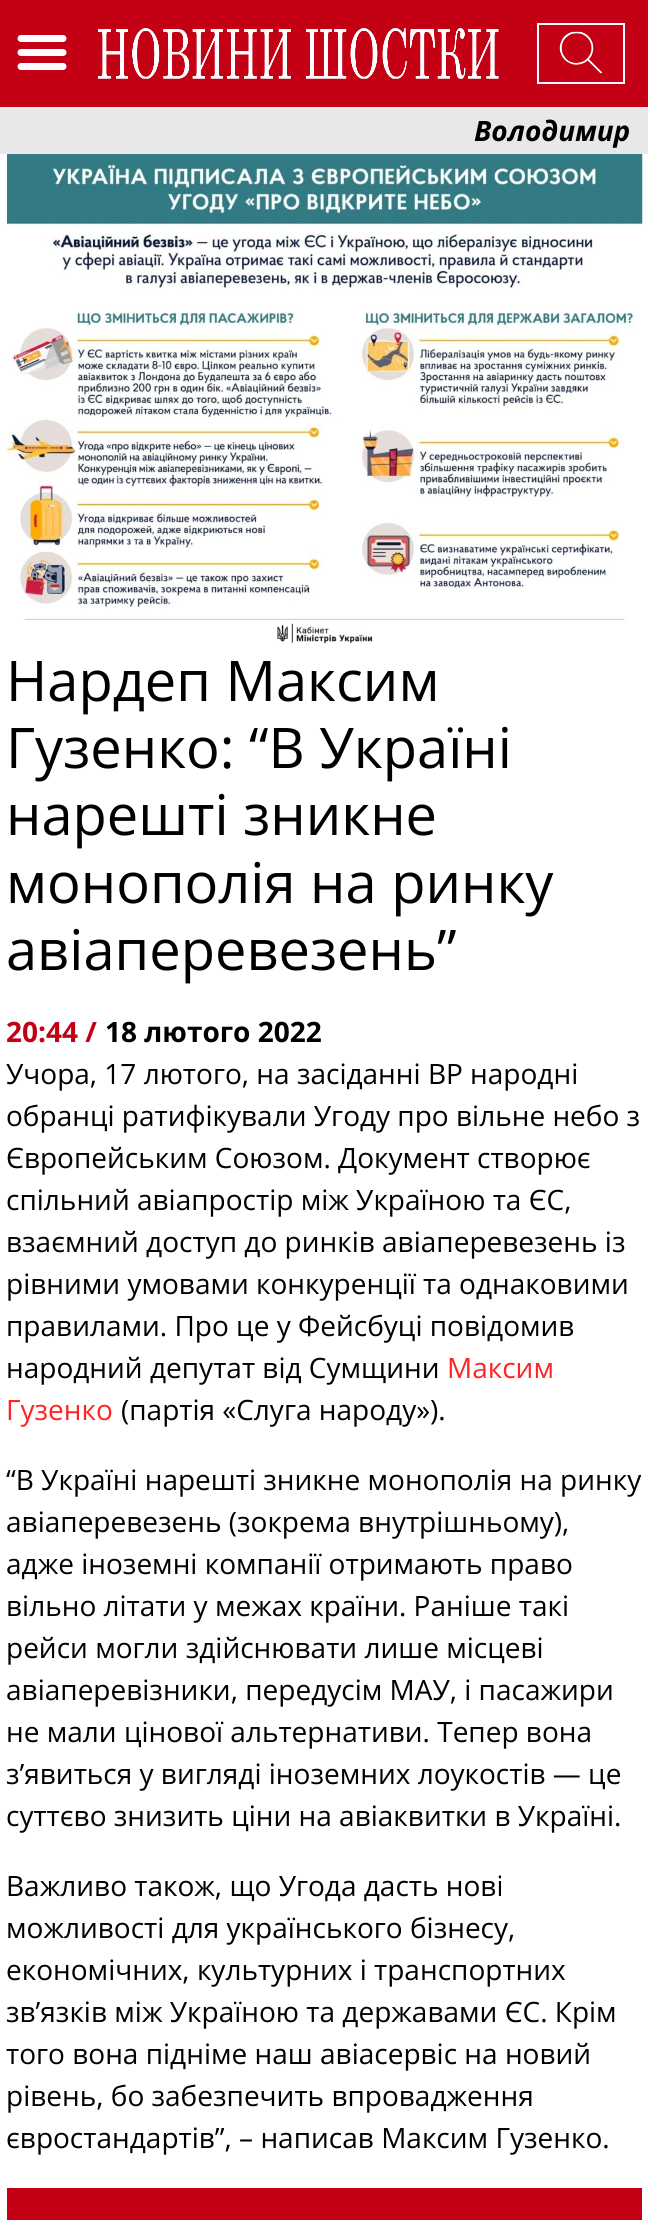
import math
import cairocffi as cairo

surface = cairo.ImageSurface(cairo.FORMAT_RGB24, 648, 2220)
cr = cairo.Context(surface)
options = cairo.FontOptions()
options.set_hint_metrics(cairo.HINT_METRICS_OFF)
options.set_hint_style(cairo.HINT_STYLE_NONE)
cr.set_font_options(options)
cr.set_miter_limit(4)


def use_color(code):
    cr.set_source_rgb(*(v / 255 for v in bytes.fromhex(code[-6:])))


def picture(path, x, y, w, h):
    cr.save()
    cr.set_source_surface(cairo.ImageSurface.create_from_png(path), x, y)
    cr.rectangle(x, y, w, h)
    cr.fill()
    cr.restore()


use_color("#ffffff")
cr.paint()
use_color("#c40014")
cr.rectangle(0, 0, 648, 107)
cr.fill()
picture("img1.png", 17, 35, 50, 35)
picture("img2.png", 98, 28, 401, 51)
cr.rectangle(538, 24, 86, 59)
use_color("#ffffff")
cr.stroke()
picture("img3.png", 559, 31, 43, 43)
use_color("#e8e8e8")
cr.rectangle(0, 107, 648, 47)
cr.fill()
cr.select_font_face("Open Sans", cairo.FONT_SLANT_ITALIC, cairo.FONT_WEIGHT_BOLD)
cr.set_font_size(28)
use_color("#000000")
cr.move_to(474, 141)
cr.show_text("Володимир")
picture("img4.png", 7, 154, 636, 490)
cr.select_font_face("Open Sans")
cr.set_font_size(56)
cr.move_to(6, 701)
cr.show_text("Нардеп Максим")
cr.move_to(6, 768)
cr.show_text("Гузенко: “В Україні")
cr.move_to(6, 835)
cr.show_text("нарешті зникне")
cr.move_to(6, 903)
cr.show_text("монополія на ринку")
cr.move_to(6, 970)
cr.show_text("авіаперевезень”")
cr.select_font_face("Open Sans", cairo.FONT_SLANT_NORMAL, cairo.FONT_WEIGHT_BOLD)
cr.set_font_size(28)
use_color("#c40014")
cr.move_to(6, 1042)
cr.show_text("20:44 /")
use_color("#000000")
cr.move_to(105, 1042)
cr.show_text("18 лютого 2022")
cr.select_font_face("Open Sans")
cr.move_to(6, 1084)
cr.show_text("Учора, 17 лютого, на засіданні ВР народні")
cr.move_to(6, 1126)
cr.show_text("обранці ратифікували Угоду про вільне небо з")
cr.move_to(6, 1168)
cr.show_text("Європейським Союзом. Документ створює")
cr.move_to(6, 1210)
cr.show_text("спільний авіапростір між Україною та ЄС,")
cr.move_to(6, 1252)
cr.show_text("взаємний доступ до ринків авіаперевезень із")
cr.move_to(6, 1294)
cr.show_text("рівними умовами конкуренції та однаковими")
cr.move_to(6, 1336)
cr.show_text("правилами. Про це у Фейсбуці повідомив")
cr.move_to(6, 1378)
cr.show_text("народний депутат від Сумщини")
use_color("#ff2424")
cr.move_to(447, 1378)
cr.show_text("Максим")
cr.move_to(6, 1420)
cr.show_text("Гузенко")
use_color("#000000")
cr.move_to(121, 1420)
cr.show_text("(партія «Слуга народу»).")
cr.move_to(6, 1490)
cr.show_text("“В Україні нарешті зникне монополія на ринку")
cr.move_to(6, 1532)
cr.show_text("авіаперевезень (зокрема внутрішньому),")
cr.move_to(6, 1574)
cr.show_text("адже іноземні компанії отримають право")
cr.move_to(6, 1616)
cr.show_text("вільно літати у межах країни. Раніше такі")
cr.move_to(6, 1658)
cr.show_text("рейси могли здійснювати лише місцеві")
cr.move_to(6, 1700)
cr.show_text("авіаперевізники, передусім МАУ, і пасажири")
cr.move_to(6, 1742)
cr.show_text("не мали цінової альтернативи. Тепер вона")
cr.move_to(6, 1784)
cr.show_text("з’явиться у вигляді іноземних лоукостів — це")
cr.move_to(6, 1826)
cr.show_text("суттєво знизить ціни на авіаквитки в Україні.")
cr.move_to(6, 1896)
cr.show_text("Важливо також, що Угода дасть нові")
cr.move_to(6, 1938)
cr.show_text("можливості для українського бізнесу,")
cr.move_to(6, 1980)
cr.show_text("економічних, культурних і транспортних")
cr.move_to(6, 2022)
cr.show_text("зв’язків між Україною та державами ЄС. Крім")
cr.move_to(6, 2064)
cr.show_text("того вона підніме наш авіасервіс на новий")
cr.move_to(6, 2106)
cr.show_text("рівень, бо забезпечить впровадження")
cr.move_to(6, 2148)
cr.show_text("євростандартів”, – написав Максим Гузенко.")
use_color("#c40014")
cr.rectangle(7, 2188, 635, 32)
cr.fill()
surface.write_to_png("result.png")
